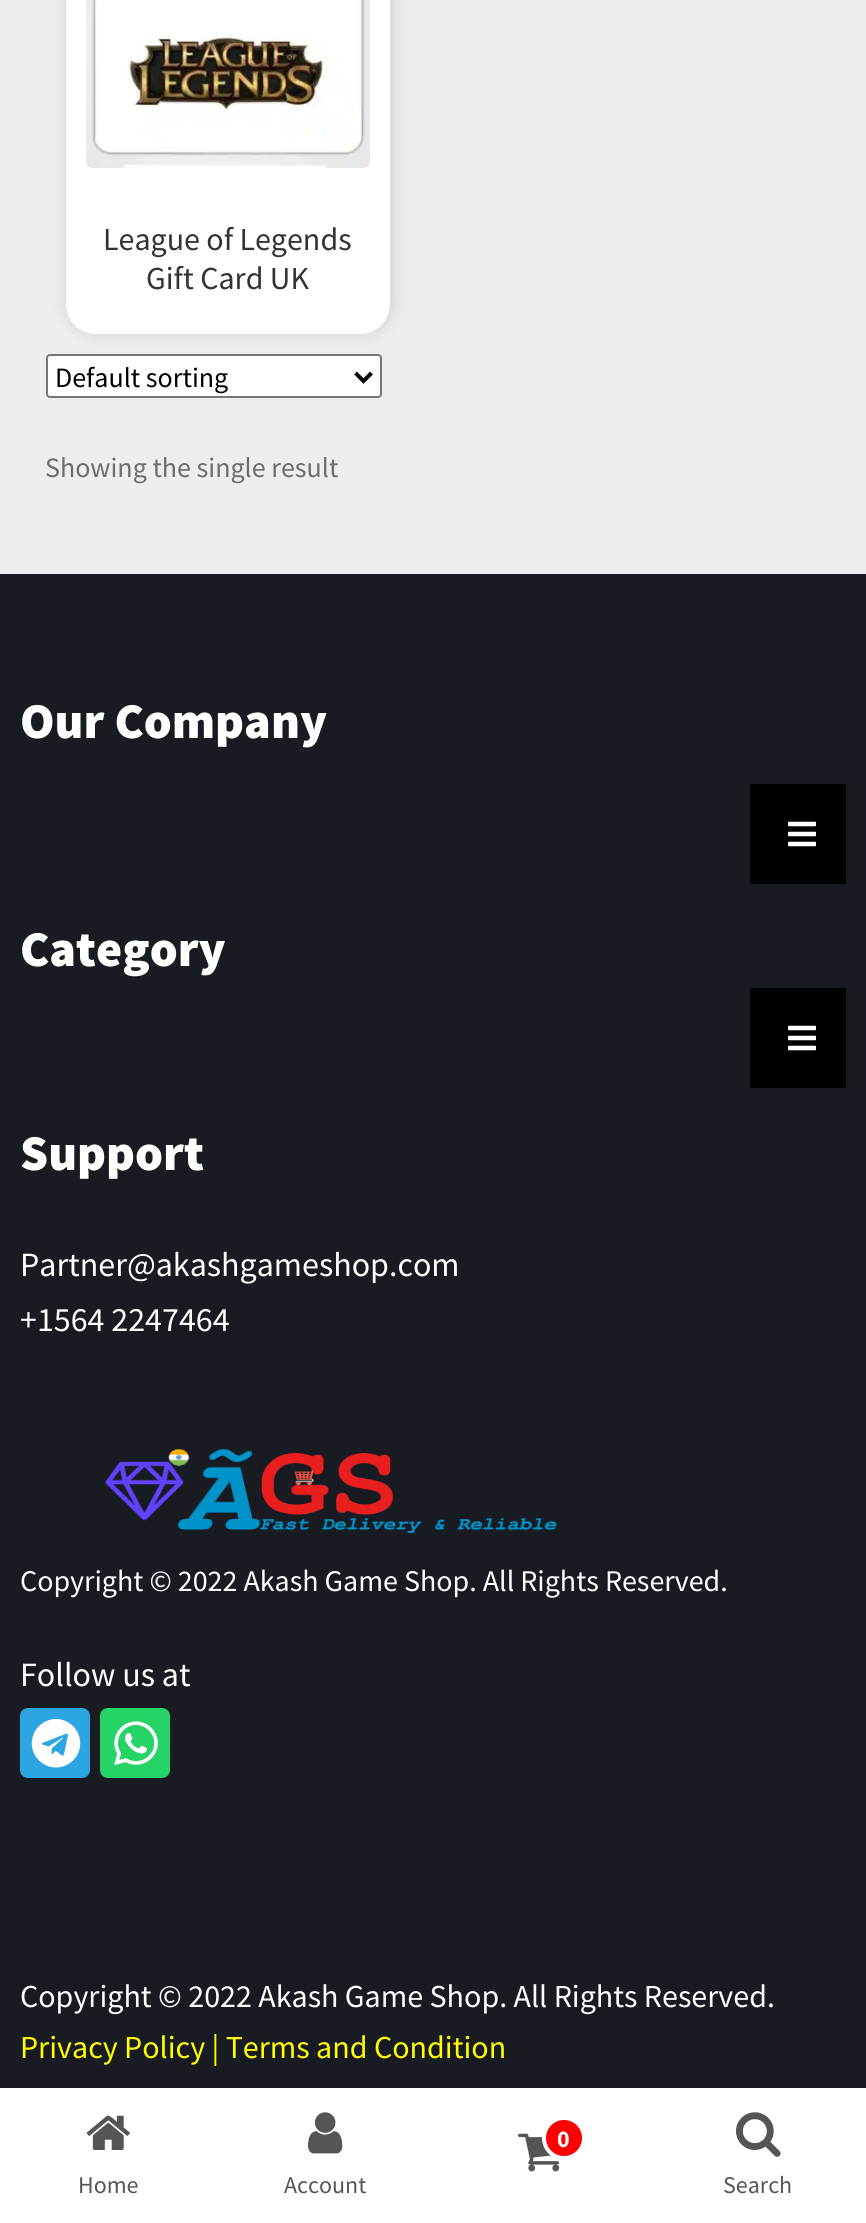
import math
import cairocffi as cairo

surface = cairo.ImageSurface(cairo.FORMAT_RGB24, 866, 2223)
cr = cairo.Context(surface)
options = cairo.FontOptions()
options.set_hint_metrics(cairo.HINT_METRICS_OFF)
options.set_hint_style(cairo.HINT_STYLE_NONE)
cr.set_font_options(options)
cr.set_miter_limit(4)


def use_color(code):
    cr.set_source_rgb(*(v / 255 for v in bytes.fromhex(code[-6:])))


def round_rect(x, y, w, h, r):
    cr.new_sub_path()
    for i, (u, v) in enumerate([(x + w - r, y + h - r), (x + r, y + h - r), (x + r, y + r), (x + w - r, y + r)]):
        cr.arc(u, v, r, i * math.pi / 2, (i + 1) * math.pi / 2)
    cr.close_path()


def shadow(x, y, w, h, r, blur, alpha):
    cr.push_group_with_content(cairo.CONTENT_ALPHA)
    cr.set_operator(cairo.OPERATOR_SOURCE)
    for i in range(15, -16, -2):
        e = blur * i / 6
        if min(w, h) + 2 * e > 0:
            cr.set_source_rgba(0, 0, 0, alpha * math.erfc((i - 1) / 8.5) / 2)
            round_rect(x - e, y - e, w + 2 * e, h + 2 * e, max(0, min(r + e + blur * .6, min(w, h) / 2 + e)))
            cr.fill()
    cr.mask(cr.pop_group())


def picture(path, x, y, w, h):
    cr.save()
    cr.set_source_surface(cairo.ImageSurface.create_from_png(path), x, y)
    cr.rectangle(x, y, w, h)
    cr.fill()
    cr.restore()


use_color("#eeeeee")
cr.paint()
use_color("#ffffff")
round_rect(47, 355, 334, 42, 3)
cr.fill_preserve()
use_color("#767676")
cr.stroke()
use_color("#000000")
shadow(64, -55, 332, 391, 34, 7, 0.1)
use_color("#ffffff")
round_rect(66, -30, 324, 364, 30)
cr.fill()
picture("img1.png", 86, 0, 284, 168)
cr.select_font_face("Source Sans Pro")
cr.set_font_size(32)
use_color("#333333")
cr.move_to(103, 250)
cr.show_text("League of Legends")
cr.move_to(146, 289)
cr.show_text("Gift Card UK")
cr.new_path()
cr.move_to(355.5, 373)
cr.line_to(363.5, 381)
cr.line_to(371.5, 373)
use_color("#000000")
cr.set_line_width(4)
cr.stroke()
cr.set_font_size(28)
cr.move_to(55, 387)
cr.show_text("Default sorting")
use_color("#6d6d6d")
cr.move_to(45, 477)
cr.show_text("Showing the single result")
use_color("#181b22")
cr.rectangle(0, 574, 866, 1514)
cr.fill()
cr.select_font_face("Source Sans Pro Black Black")
cr.set_font_size(50)
use_color("#ffffff")
cr.move_to(20, 738)
cr.show_text("Our Company")
use_color("#000000")
cr.rectangle(750, 784, 96, 100)
cr.fill()
picture("img2.png", 788, 821, 28, 26)
use_color("#ffffff")
cr.move_to(20, 966)
cr.show_text("Category")
use_color("#000000")
cr.rectangle(750, 988, 96, 100)
cr.fill()
picture("img2.png", 788, 1025, 28, 26)
use_color("#ffffff")
cr.move_to(20, 1170)
cr.show_text("Support")
cr.select_font_face("Source Sans Pro")
cr.set_font_size(34)
cr.move_to(20, 1276)
cr.show_text("Partner@akashgameshop.com")
cr.move_to(20, 1331)
cr.show_text("+1564 2247464")
picture("img3.png", 105, 1449, 452, 84)
cr.set_font_size(30)
cr.move_to(20, 1591)
cr.show_text("Copyright © 2022 Akash Game Shop. All Rights Reserved.")
cr.set_font_size(34)
cr.move_to(20, 1686)
cr.show_text("Follow us at")
use_color("#2ca5e0")
round_rect(20, 1708, 70, 70, 8)
cr.fill()
picture("img4.png", 31, 1719, 50, 49)
use_color("#25d366")
round_rect(100, 1708, 70, 70, 8)
cr.fill()
picture("img5.png", 114, 1721, 44, 45)
cr.set_font_size(32)
use_color("#ffffff")
cr.move_to(20, 2007)
cr.show_text("Copyright © 2022 Akash Game Shop. All Rights Reserved.")
use_color("#ffff00")
cr.move_to(20, 2058)
cr.show_text("Privacy Policy | Terms and Condition")
use_color("#000000")
shadow(0, 2078, 866, 136, 0, 10, 0.1)
use_color("#ffffff")
cr.rectangle(0, 2088, 866, 135)
cr.fill()
picture("img6.png", 518, 2133, 42, 39)
use_color("#ff0000")
cr.arc(564, 2138, 20, 0, 2 * math.pi)
cr.fill_preserve()
use_color("#ffffff")
cr.stroke()
cr.select_font_face("Source Sans Pro", cairo.FONT_SLANT_NORMAL, cairo.FONT_WEIGHT_BOLD)
cr.set_font_size(24)
cr.move_to(557, 2147)
cr.show_text("0")
picture("img7.png", 86, 2115, 44, 35)
cr.select_font_face("Source Sans Pro")
use_color("#555555")
cr.move_to(78, 2193)
cr.show_text("Home")
picture("img8.png", 308, 2112, 35, 42)
cr.move_to(284, 2193)
cr.show_text("Account")
picture("img9.png", 736, 2112, 45, 45)
cr.move_to(723, 2193)
cr.show_text("Search")
surface.write_to_png("result.png")
